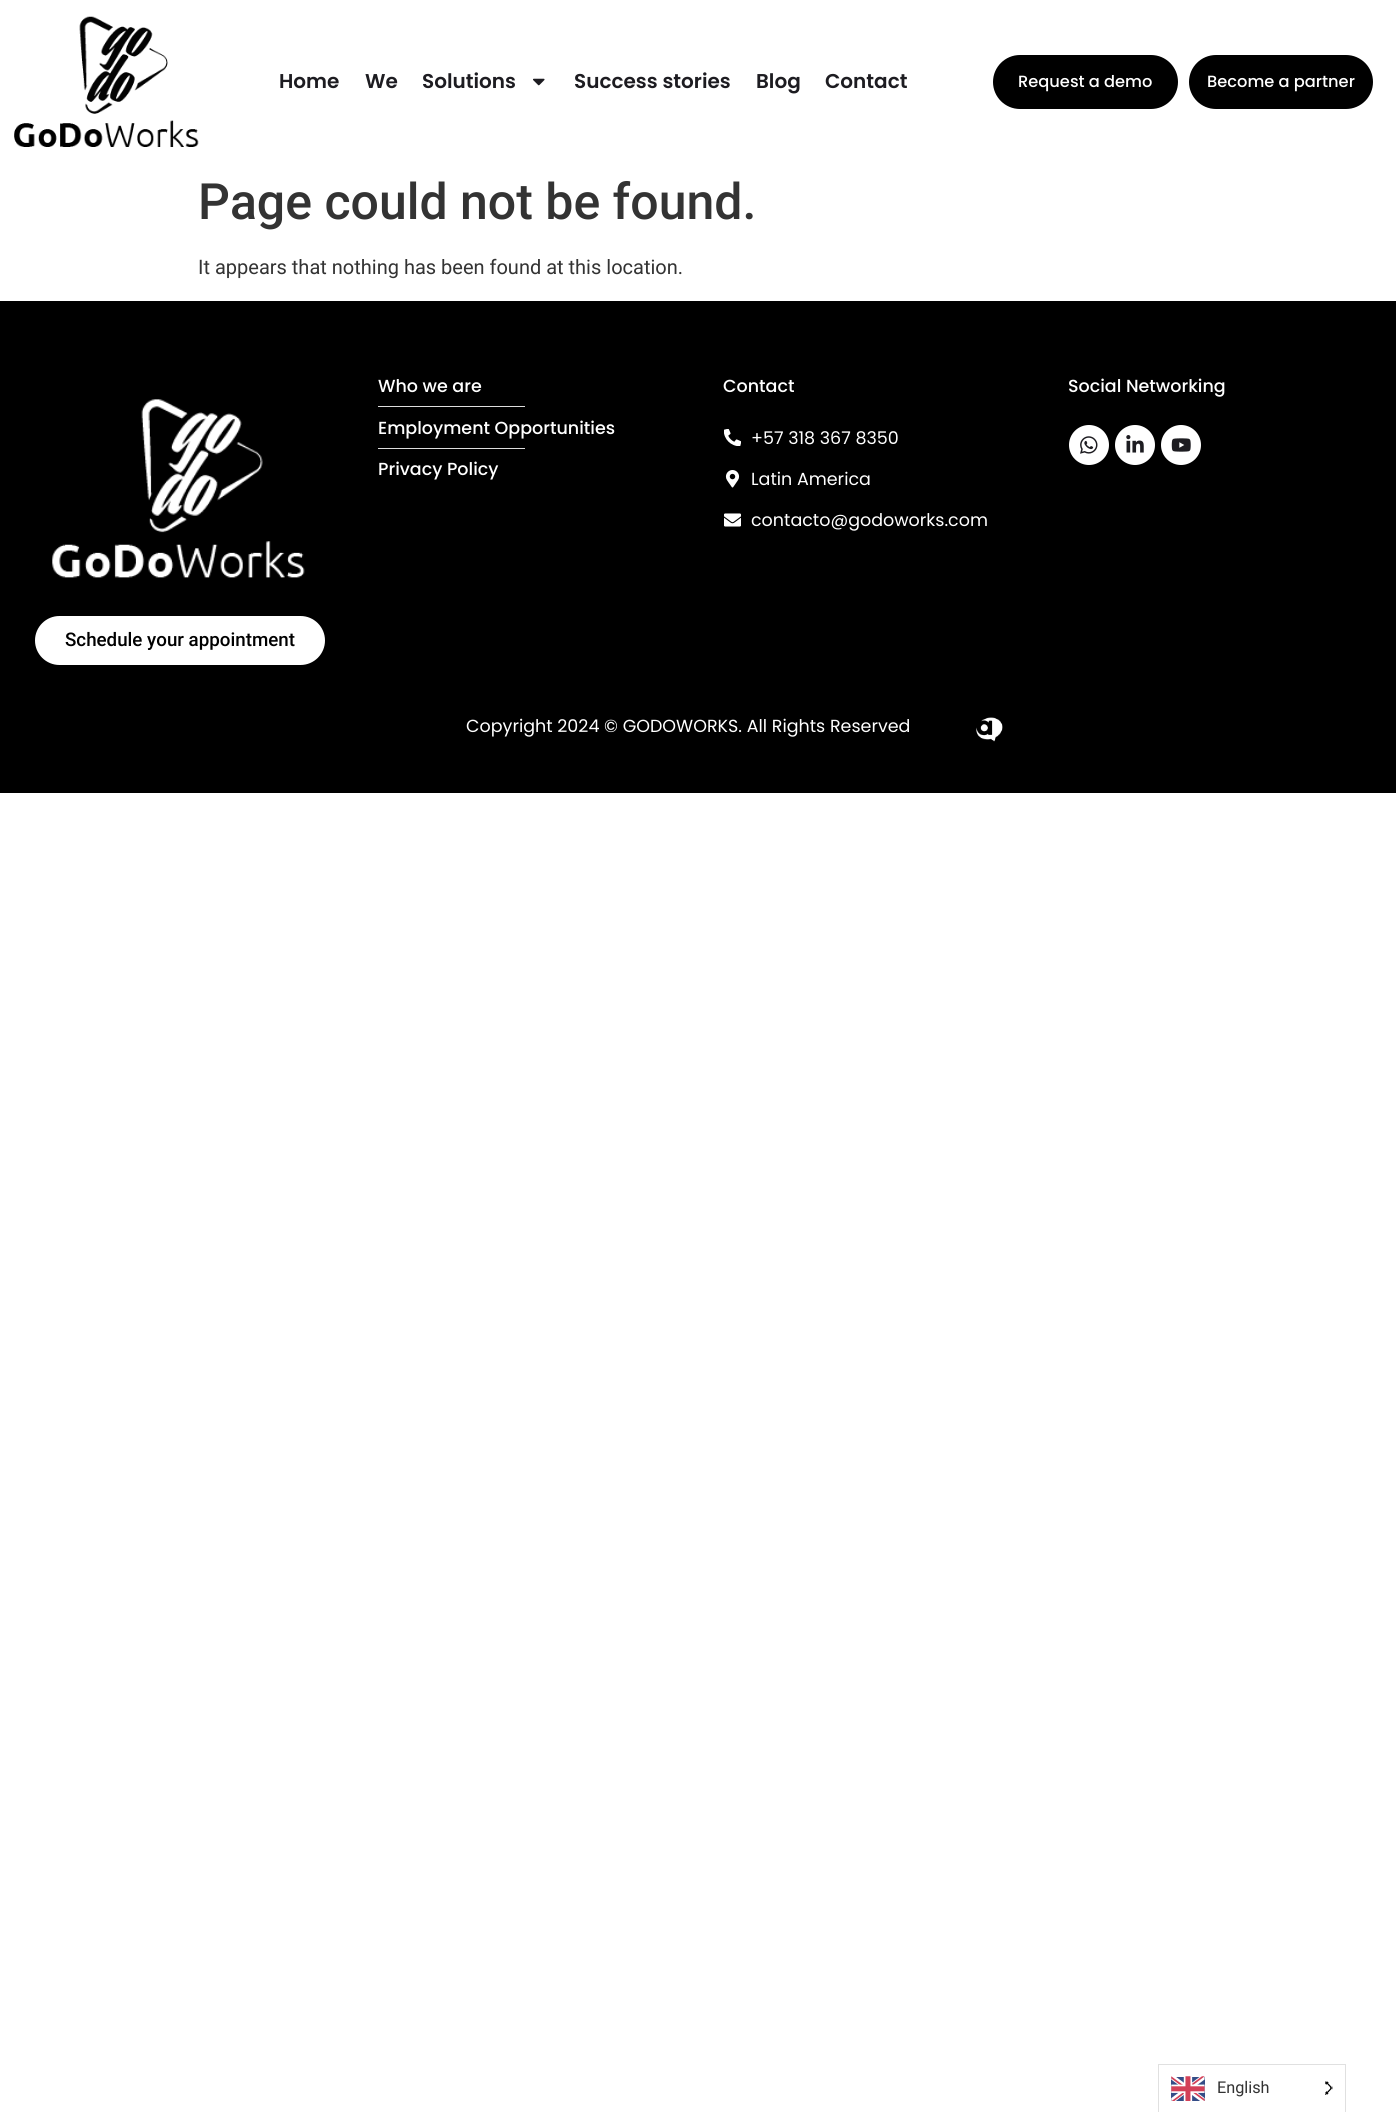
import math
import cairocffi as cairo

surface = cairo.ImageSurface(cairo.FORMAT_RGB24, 1396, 2112)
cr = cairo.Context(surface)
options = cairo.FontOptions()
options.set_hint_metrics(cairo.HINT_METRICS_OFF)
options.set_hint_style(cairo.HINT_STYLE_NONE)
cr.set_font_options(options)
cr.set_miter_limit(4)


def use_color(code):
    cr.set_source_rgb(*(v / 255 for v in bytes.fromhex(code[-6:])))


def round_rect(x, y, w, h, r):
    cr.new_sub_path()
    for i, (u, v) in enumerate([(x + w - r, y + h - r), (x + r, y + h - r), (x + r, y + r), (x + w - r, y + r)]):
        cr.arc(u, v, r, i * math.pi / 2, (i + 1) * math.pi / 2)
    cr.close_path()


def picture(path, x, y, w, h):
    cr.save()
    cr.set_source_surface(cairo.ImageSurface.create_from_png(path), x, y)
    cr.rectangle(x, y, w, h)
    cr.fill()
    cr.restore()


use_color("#ffffff")
cr.paint()
picture("img1.png", 14, 16, 185, 131)
cr.select_font_face("Poppins SemiBold")
cr.set_font_size(20)
use_color("#1d1c21")
cr.move_to(279, 88)
cr.show_text("Home")
cr.move_to(365, 88)
cr.show_text("We")
cr.move_to(422, 88)
cr.show_text("Solutions")
picture("img2.png", 533, 78, 12, 8)
cr.move_to(574, 88)
cr.show_text("Success stories")
cr.move_to(756, 88)
cr.show_text("Blog")
cr.move_to(825, 88)
cr.show_text("Contact")
use_color("#000000")
round_rect(993, 55, 185, 54, 27)
cr.fill()
cr.select_font_face("Poppins Medium")
cr.set_font_size(16.25)
use_color("#ffffff")
cr.move_to(1018, 87)
cr.show_text("Request a demo")
use_color("#000000")
round_rect(1189, 55, 184, 54, 27)
cr.fill()
use_color("#ffffff")
cr.move_to(1207, 87)
cr.show_text("Become a partner")
cr.select_font_face("Roboto Medium")
cr.set_font_size(50)
use_color("#333333")
cr.move_to(198, 219)
cr.show_text("Page could not be found.")
cr.select_font_face("Roboto")
cr.set_font_size(20)
cr.move_to(198, 274)
cr.show_text("It appears that nothing has been found at this location.")
use_color("#000000")
cr.rectangle(0, 301, 1396, 492)
cr.fill()
cr.select_font_face("Poppins Medium")
cr.set_font_size(17.5)
use_color("#ffffff")
cr.move_to(378, 392)
cr.show_text("Who we are")
use_color("#dddddd")
cr.rectangle(378, 406, 147, 1)
cr.fill()
use_color("#ffffff")
cr.move_to(378, 434)
cr.show_text("Employment Opportunities")
use_color("#dddddd")
cr.rectangle(378, 448, 147, 1)
cr.fill()
use_color("#ffffff")
cr.move_to(378, 475)
cr.show_text("Privacy Policy")
cr.move_to(723, 392)
cr.show_text("Contact")
picture("img3.png", 724, 429, 17, 17)
cr.select_font_face("Poppins")
cr.move_to(751, 444)
cr.show_text("+57 318 367 8350")
picture("img4.png", 725, 470, 15, 18)
cr.move_to(751, 485)
cr.show_text("Latin America")
picture("img5.png", 724, 513, 17, 14)
cr.move_to(751, 526)
cr.show_text("contacto@godoworks.com")
cr.select_font_face("Poppins Medium")
cr.move_to(1068, 392)
cr.show_text("Social Networking")
cr.new_path()
cr.arc(1089, 445, 20, 0, 2 * math.pi)
cr.fill()
picture("img6.png", 1080, 436, 18, 18)
cr.arc(1135, 445, 20, 0, 2 * math.pi)
cr.fill()
picture("img7.png", 1126, 435, 18, 18)
cr.arc(1181, 445, 20, 0, 2 * math.pi)
cr.fill()
picture("img8.png", 1171, 438, 20, 14)
picture("img9.png", 52, 399, 253, 179)
round_rect(35, 616, 290, 49, 24.5)
cr.fill()
cr.select_font_face("Roboto Medium")
cr.set_font_size(18.75)
use_color("#000000")
cr.move_to(65, 646)
cr.show_text("Schedule your appointment")
cr.select_font_face("Poppins")
cr.set_font_size(17.5)
use_color("#ffffff")
cr.move_to(466, 732)
cr.show_text("Copyright 2024 © GODOWORKS. All Rights Reserved")
picture("img10.png", 976, 717, 27, 25)
cr.rectangle(1158.5, 2064.5, 187, 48)
use_color("#e0e0e0")
cr.set_line_width(1)
cr.stroke()
picture("img11.png", 1171, 2076, 34, 25)
cr.select_font_face("Roboto")
cr.set_font_size(16.25)
use_color("#333333")
cr.move_to(1217, 2093)
cr.show_text("English")
picture("img12.png", 1325, 2081, 8, 14)
surface.write_to_png("result.png")
